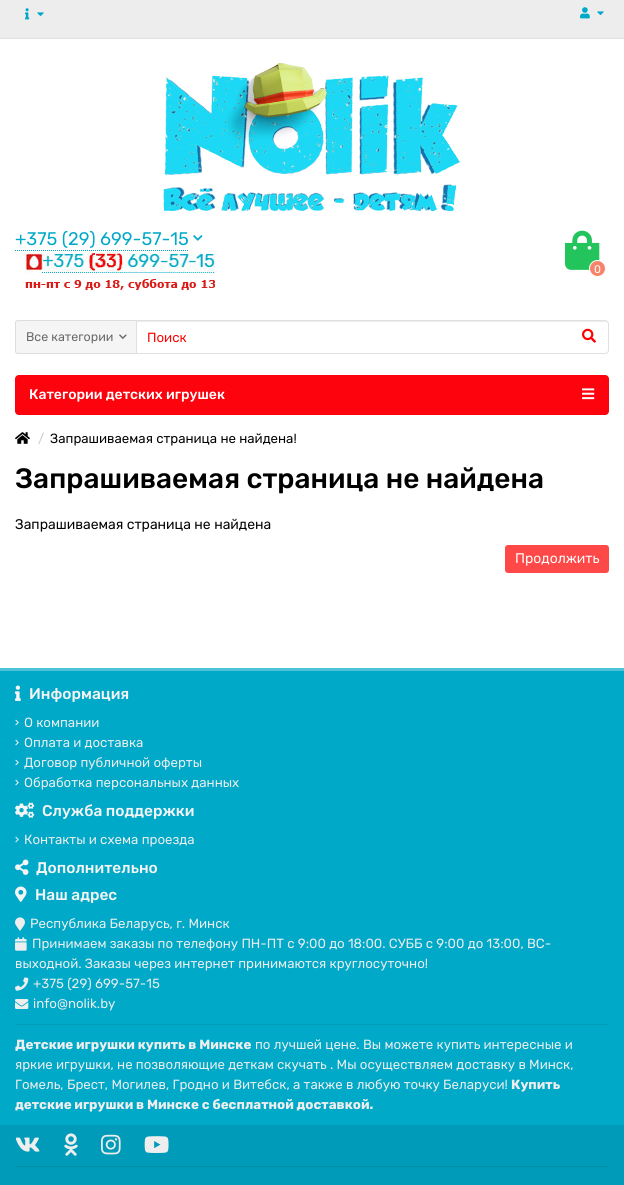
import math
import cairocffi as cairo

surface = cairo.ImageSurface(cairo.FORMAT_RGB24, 624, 1185)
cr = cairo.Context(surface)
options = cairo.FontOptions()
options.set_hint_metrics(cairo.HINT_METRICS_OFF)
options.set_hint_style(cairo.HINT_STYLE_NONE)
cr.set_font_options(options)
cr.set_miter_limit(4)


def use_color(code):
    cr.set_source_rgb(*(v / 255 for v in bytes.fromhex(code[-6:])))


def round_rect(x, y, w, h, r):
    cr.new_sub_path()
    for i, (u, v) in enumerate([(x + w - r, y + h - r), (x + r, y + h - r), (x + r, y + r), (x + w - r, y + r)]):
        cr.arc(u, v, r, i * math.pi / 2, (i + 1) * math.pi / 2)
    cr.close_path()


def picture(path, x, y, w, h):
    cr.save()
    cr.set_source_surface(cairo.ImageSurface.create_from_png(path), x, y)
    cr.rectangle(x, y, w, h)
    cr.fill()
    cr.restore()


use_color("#ffffff")
cr.paint()
use_color("#ededed")
cr.rectangle(0, 0, 624, 38)
cr.fill()
use_color("#e1e1e1")
cr.rectangle(0, 38, 624, 1)
cr.fill()
picture("img1.png", 25, 8, 5, 12)
picture("img2.png", 37, 12, 7, 4)
picture("img3.png", 580, 7, 10, 12)
picture("img2.png", 597, 11, 7, 4)
picture("img4.png", 163, 60, 297, 151)
cr.select_font_face("Rubik")
cr.set_font_size(18.25)
use_color("#00a9c8")
cr.move_to(15, 245)
cr.show_text("+375 (29) 699-57-15")
cr.new_path()
cr.move_to(15, 250.5)
cr.line_to(188, 250.5)
cr.set_line_width(1)
cr.set_dash([1, 1])
cr.stroke()
picture("img5.png", 193, 235, 10, 6)
picture("img6.png", 25, 252, 190, 38)
picture("img7.png", 565, 230, 35, 40)
use_color("#f6846a")
cr.arc(597.5, 268.5, 8, 0, 2 * math.pi)
cr.fill_preserve()
use_color("#ffffff")
cr.set_dash([])
cr.stroke()
cr.set_font_size(11)
cr.move_to(594, 273)
cr.show_text("0")
use_color("#f5f5f5")
cr.new_path()
cr.move_to(18, 320)
cr.line_to(137, 320)
cr.line_to(137, 354)
cr.line_to(18, 354)
cr.curve_to(16.5, 354, 15, 352.5, 15, 351)
cr.line_to(15, 323)
cr.curve_to(15, 321.5, 16.5, 320, 18, 320)
cr.close_path()
cr.fill()
cr.set_source_rgba(0, 0, 0, 0.1)
cr.set_fill_rule(cairo.FILL_RULE_EVEN_ODD)
cr.new_path()
cr.move_to(18, 320)
cr.line_to(137, 320)
cr.line_to(137, 354)
cr.line_to(18, 354)
cr.curve_to(16, 354, 15, 353, 15, 351)
cr.line_to(15, 323)
cr.curve_to(15, 321, 16, 320, 18, 320)
cr.close_path()
cr.move_to(18, 321)
cr.line_to(137, 321)
cr.line_to(137, 353)
cr.line_to(18, 353)
cr.curve_to(17, 353, 16, 352, 16, 351)
cr.line_to(16, 323)
cr.curve_to(16, 322, 17, 321, 18, 321)
cr.close_path()
cr.fill()
cr.set_font_size(12.5)
use_color("#666666")
cr.move_to(26, 341)
cr.show_text("Все категории")
picture("img8.png", 119, 334, 8, 5)
use_color("#ffffff")
cr.new_path()
cr.move_to(136, 320)
cr.line_to(605, 320)
cr.curve_to(607, 320, 609, 322, 609, 324)
cr.line_to(609, 350)
cr.curve_to(609, 352, 607, 354, 605, 354)
cr.line_to(136, 354)
cr.close_path()
cr.fill()
use_color("#ececec")
cr.set_fill_rule(cairo.FILL_RULE_WINDING)
cr.new_path()
cr.move_to(137, 322)
cr.line_to(605, 322)
cr.curve_to(607, 322, 608, 323, 608, 325)
cr.curve_to(608, 323, 607, 321, 605, 321)
cr.line_to(137, 321)
cr.close_path()
cr.fill()
cr.new_path()
cr.move_to(136.5, 320.5)
cr.line_to(605, 320.5)
cr.curve_to(607, 320.5, 608.5, 322, 608.5, 324)
cr.line_to(608.5, 350)
cr.curve_to(608.5, 352, 607, 353.5, 605, 353.5)
cr.line_to(136.5, 353.5)
cr.close_path()
use_color("#e0e0e0")
cr.stroke()
cr.set_font_size(13.3)
use_color("#ff0000")
cr.move_to(147, 342)
cr.show_text("Поиск")
picture("img9.png", 582, 328, 14, 15)
use_color("#fc030e")
round_rect(15, 375, 594, 40, 4)
cr.fill()
cr.select_font_face("Rubik Medium")
cr.set_font_size(14)
use_color("#ffffff")
cr.move_to(29, 399)
cr.show_text("Категории детских игрушек")
picture("img10.png", 582, 388, 13, 12)
picture("img11.png", 15, 432, 15, 12)
cr.select_font_face("Rubik")
cr.set_font_size(13.3)
use_color("#cccccc")
cr.move_to(38, 443)
cr.show_text("/")
use_color("#000000")
cr.move_to(50, 443)
cr.show_text("Запрашиваемая страница не найдена!")
cr.select_font_face("Rubik Medium")
cr.set_font_size(28)
cr.move_to(15, 488)
cr.show_text("Запрашиваемая страница не найдена")
cr.select_font_face("Rubik")
cr.set_font_size(14)
cr.move_to(15, 529)
cr.show_text("Запрашиваемая страница не найдена")
use_color("#ff4848")
round_rect(505, 545, 104, 28, 3)
cr.fill()
use_color("#ffffff")
cr.move_to(515, 563)
cr.show_text("Продолжить")
use_color("#00a9c8")
cr.rectangle(0, 671, 624, 454)
cr.fill()
use_color("#4dc3d9")
cr.rectangle(0, 668, 624, 3)
cr.fill()
picture("img12.png", 15, 685, 6, 16)
cr.select_font_face("Rubik Medium")
cr.set_font_size(15.5)
use_color("#f5f5f5")
cr.move_to(29, 699)
cr.show_text("Информация")
picture("img13.png", 15, 719, 4, 7)
cr.select_font_face("Rubik")
cr.set_font_size(13.3)
use_color("#eeeeee")
cr.move_to(24, 727)
cr.show_text("О компании")
picture("img13.png", 15, 739, 4, 7)
cr.move_to(24, 747)
cr.show_text("Оплата и доставка")
picture("img13.png", 15, 759, 4, 7)
cr.move_to(24, 767)
cr.show_text("Договор публичной оферты")
picture("img13.png", 15, 779, 4, 7)
cr.move_to(24, 787)
cr.show_text("Обработка персональных данных")
picture("img14.png", 15, 802, 20, 16)
cr.select_font_face("Rubik Medium")
cr.set_font_size(15.5)
use_color("#f5f5f5")
cr.move_to(42, 816)
cr.show_text("Служба поддержки")
picture("img13.png", 15, 836, 4, 7)
cr.select_font_face("Rubik")
cr.set_font_size(13.3)
use_color("#eeeeee")
cr.move_to(24, 844)
cr.show_text("Контакты и схема проезда")
picture("img15.png", 15, 859, 14, 16)
cr.select_font_face("Rubik Medium")
cr.set_font_size(15.5)
use_color("#f5f5f5")
cr.move_to(36, 873)
cr.show_text("Дополнительно")
picture("img16.png", 15, 886, 12, 16)
cr.move_to(35, 900)
cr.show_text("Наш адрес")
picture("img17.png", 15, 917, 10, 14)
cr.select_font_face("Rubik")
cr.set_font_size(13.3)
use_color("#eeeeee")
cr.move_to(30, 928)
cr.show_text("Республика Беларусь, г. Минск")
picture("img18.png", 15, 937, 12, 14)
cr.move_to(32, 948)
cr.show_text("Принимаем заказы по телефону ПН-ПТ с 9:00 до 18:00. СУББ с 9:00 до 13:00, ВС-")
cr.move_to(15, 968)
cr.show_text("выходной. Заказы через интернет принимаются круглосуточно!")
picture("img19.png", 15, 977, 14, 14)
cr.move_to(33, 988)
cr.show_text("+375 (29) 699-57-15")
picture("img20.png", 15, 999, 14, 10)
cr.move_to(33, 1008)
cr.show_text("info@nolik.by")
use_color("#009bb8")
cr.rectangle(15, 1024, 594, 1)
cr.fill()
cr.select_font_face("Rubik", cairo.FONT_SLANT_NORMAL, cairo.FONT_WEIGHT_BOLD)
use_color("#eeeeee")
cr.move_to(15, 1049)
cr.show_text("Детские игрушки купить в Минске")
cr.select_font_face("Rubik")
cr.move_to(255, 1049)
cr.show_text("по лучшей цене. Вы можете купить интересные и")
cr.move_to(15, 1069)
cr.show_text("яркие игрушки, не позволяющие деткам скучать . Мы осуществляем доставку в Минск,")
cr.move_to(15, 1089)
cr.show_text("Гомель, Брест, Могилев, Гродно и Витебск, а также в любую точку Беларуси!")
cr.select_font_face("Rubik", cairo.FONT_SLANT_NORMAL, cairo.FONT_WEIGHT_BOLD)
cr.move_to(511, 1089)
cr.show_text("Купить")
cr.move_to(15, 1109)
cr.show_text("детские игрушки в Минске с бесплатной доставкой.")
use_color("#009bb8")
cr.rectangle(0, 1125, 624, 60)
cr.fill()
picture("img21.png", 15, 1137, 25, 15)
picture("img22.png", 64, 1133, 14, 23)
picture("img23.png", 101, 1134, 20, 21)
picture("img24.png", 144, 1136, 25, 17)
use_color("#008fa9")
cr.rectangle(15, 1166, 594, 1)
cr.fill()
surface.write_to_png("result.png")
